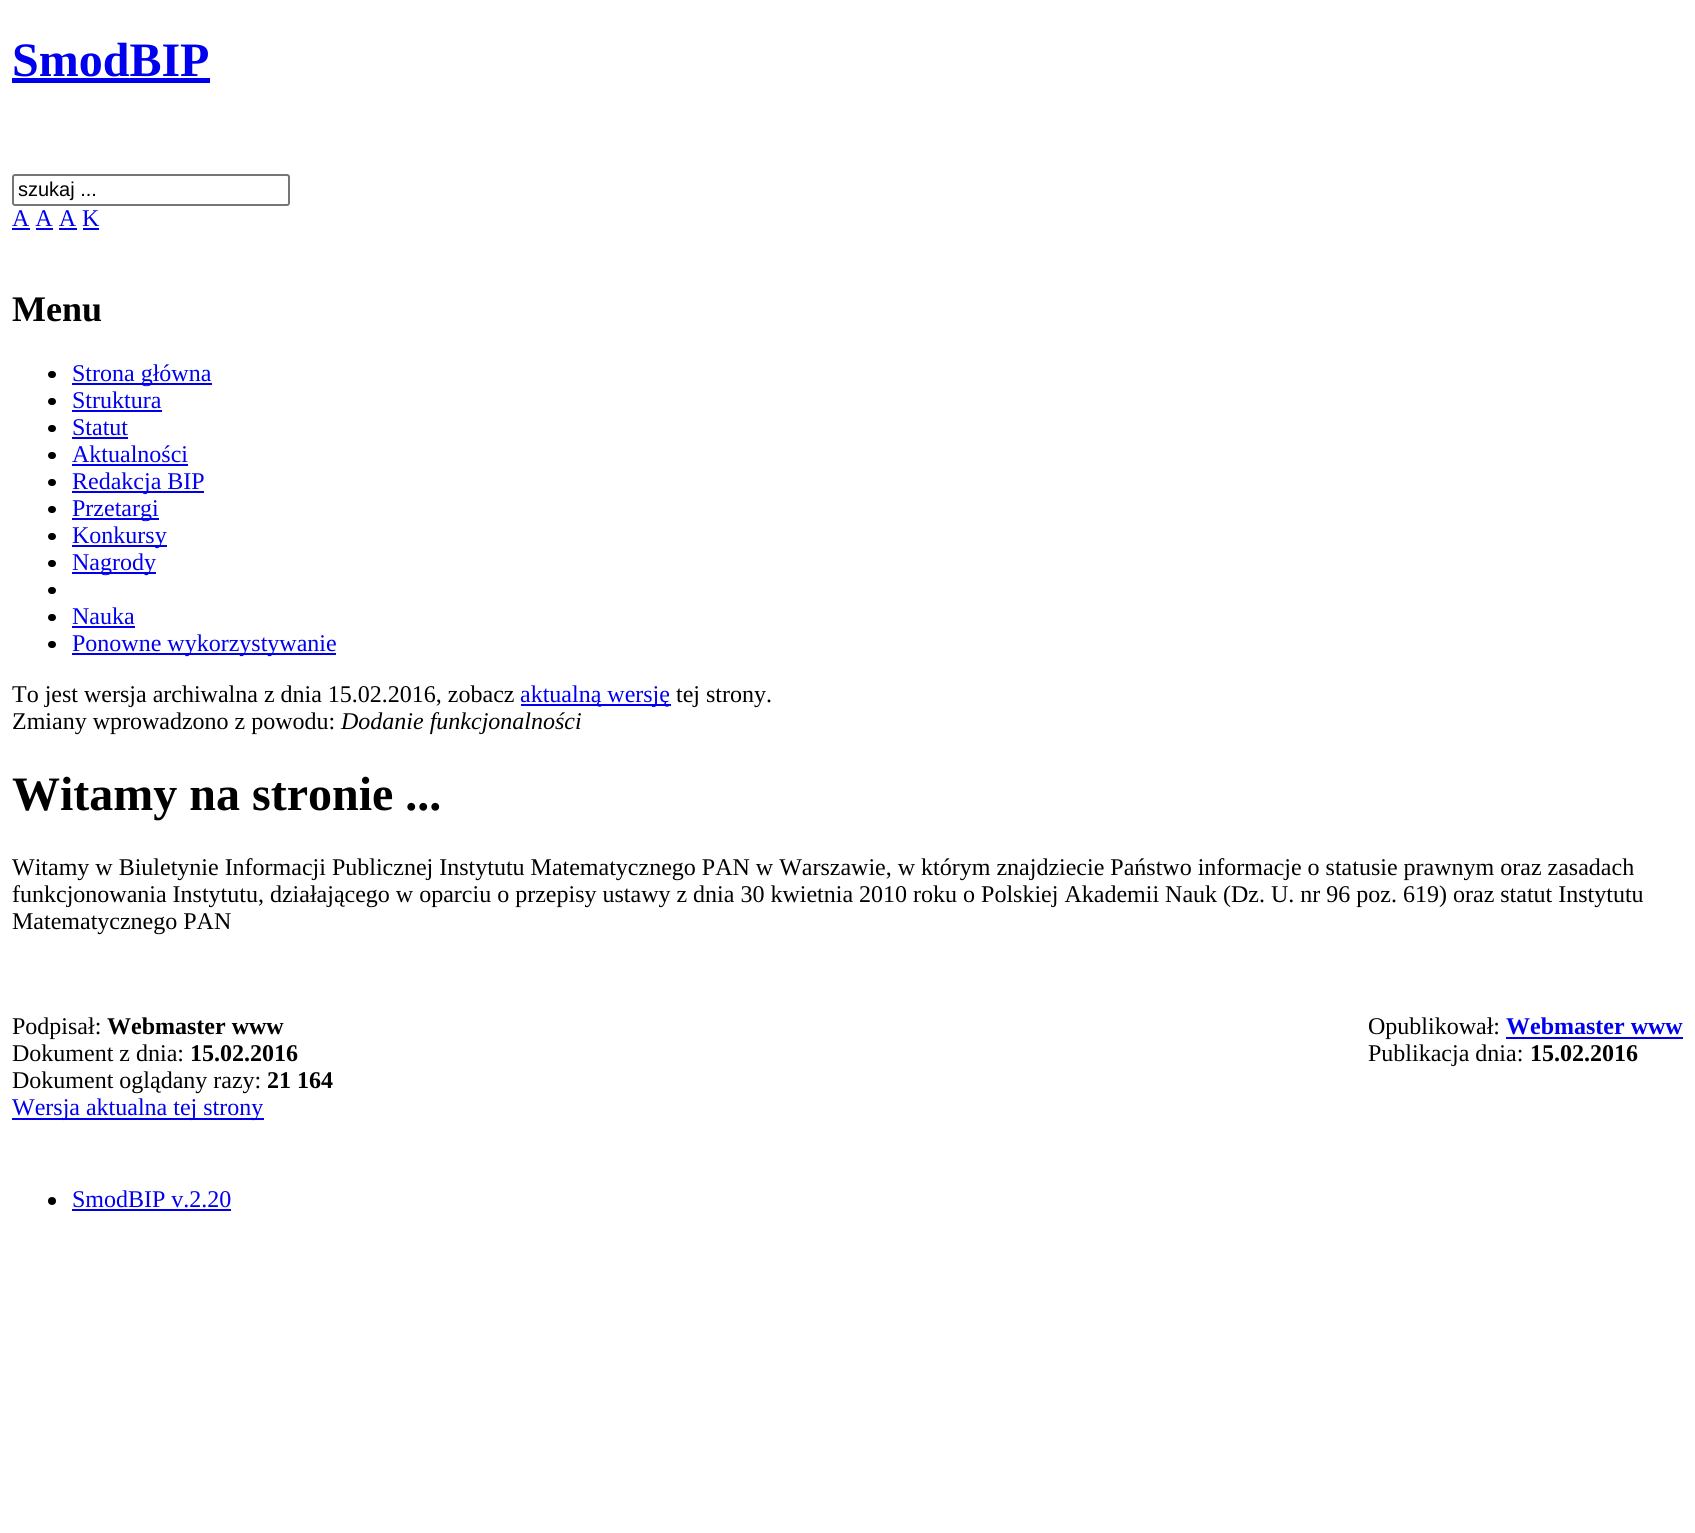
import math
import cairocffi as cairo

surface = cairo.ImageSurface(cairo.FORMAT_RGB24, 1695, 1533)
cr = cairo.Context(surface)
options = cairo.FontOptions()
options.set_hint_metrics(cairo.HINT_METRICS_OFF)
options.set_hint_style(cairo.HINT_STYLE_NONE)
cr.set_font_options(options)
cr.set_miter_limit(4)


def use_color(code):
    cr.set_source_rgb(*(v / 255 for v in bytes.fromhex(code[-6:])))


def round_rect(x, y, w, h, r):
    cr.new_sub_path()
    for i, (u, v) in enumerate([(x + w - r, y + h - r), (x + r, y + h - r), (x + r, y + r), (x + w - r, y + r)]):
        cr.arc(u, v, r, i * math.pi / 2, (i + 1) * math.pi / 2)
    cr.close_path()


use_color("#ffffff")
cr.paint()
cr.select_font_face("Liberation Serif", cairo.FONT_SLANT_NORMAL, cairo.FONT_WEIGHT_BOLD)
cr.set_font_size(48)
use_color("#0000ee")
cr.move_to(12, 76)
cr.show_text("SmodBIP")
cr.rectangle(12, 78, 198, 5)
cr.fill()
round_rect(13, 175, 276, 30, 2)
use_color("#767676")
cr.stroke()
cr.select_font_face("Liberation Sans")
cr.set_font_size(20)
use_color("#000000")
cr.move_to(18, 196)
cr.show_text("szukaj ...")
cr.select_font_face("Liberation Serif")
cr.set_font_size(24)
use_color("#0000ee")
cr.move_to(12, 226)
cr.show_text("A A A K")
cr.rectangle(12, 228, 18, 2)
cr.fill()
cr.rectangle(36, 228, 17, 2)
cr.fill()
cr.rectangle(59, 228, 18, 2)
cr.fill()
cr.rectangle(83, 228, 16, 2)
cr.fill()
cr.select_font_face("Liberation Serif", cairo.FONT_SLANT_NORMAL, cairo.FONT_WEIGHT_BOLD)
cr.set_font_size(36)
use_color("#000000")
cr.move_to(12, 321)
cr.show_text("Menu")
round_rect(48, 371, 8, 7, 3.5)
cr.fill()
use_color("#0000ee")
cr.rectangle(72, 383, 140, 2)
cr.fill()
cr.select_font_face("Liberation Serif")
cr.set_font_size(24)
cr.move_to(72, 381)
cr.show_text("Strona główna")
use_color("#000000")
round_rect(48, 398, 8, 7, 3.5)
cr.fill()
use_color("#0000ee")
cr.move_to(72, 408)
cr.show_text("Struktura")
cr.rectangle(72, 410, 90, 2)
cr.fill()
use_color("#000000")
round_rect(48, 425, 8, 7, 3.5)
cr.fill()
use_color("#0000ee")
cr.move_to(72, 435)
cr.show_text("Statut")
cr.rectangle(72, 437, 56, 2)
cr.fill()
use_color("#000000")
round_rect(48, 452, 8, 7, 3.5)
cr.fill()
use_color("#0000ee")
cr.move_to(72, 462)
cr.show_text("Aktualności")
cr.rectangle(72, 464, 116, 2)
cr.fill()
use_color("#000000")
round_rect(48, 479, 8, 7, 3.5)
cr.fill()
use_color("#0000ee")
cr.rectangle(72, 491, 132, 2)
cr.fill()
cr.move_to(72, 489)
cr.show_text("Redakcja BIP")
use_color("#000000")
round_rect(48, 506, 8, 7, 3.5)
cr.fill()
use_color("#0000ee")
cr.rectangle(72, 518, 87, 2)
cr.fill()
cr.move_to(72, 516)
cr.show_text("Przetargi")
use_color("#000000")
round_rect(48, 533, 8, 7, 3.5)
cr.fill()
use_color("#0000ee")
cr.rectangle(72, 545, 95, 2)
cr.fill()
cr.move_to(72, 543)
cr.show_text("Konkursy")
use_color("#000000")
round_rect(48, 560, 8, 7, 3.5)
cr.fill()
use_color("#0000ee")
cr.rectangle(72, 572, 84, 2)
cr.fill()
cr.move_to(72, 570)
cr.show_text("Nagrody")
use_color("#000000")
round_rect(48, 587, 8, 7, 3.5)
cr.fill()
round_rect(48, 614, 8, 7, 3.5)
cr.fill()
use_color("#0000ee")
cr.move_to(72, 624)
cr.show_text("Nauka")
cr.rectangle(72, 626, 63, 2)
cr.fill()
use_color("#000000")
round_rect(48, 641, 8, 7, 3.5)
cr.fill()
use_color("#0000ee")
cr.rectangle(72, 653, 264, 2)
cr.fill()
cr.move_to(72, 651)
cr.show_text("Ponowne wykorzystywanie")
use_color("#000000")
cr.move_to(12, 702)
cr.show_text("To jest wersja archiwalna z dnia 15.02.2016, zobacz")
use_color("#0000ee")
cr.rectangle(521, 704, 150, 2)
cr.fill()
cr.move_to(520, 702)
cr.show_text("aktualną wersję")
use_color("#000000")
cr.move_to(676, 702)
cr.show_text("tej strony.")
cr.move_to(12, 729)
cr.show_text("Zmiany wprowadzono z powodu:")
cr.select_font_face("Liberation Serif", cairo.FONT_SLANT_ITALIC)
cr.move_to(341, 729)
cr.show_text("Dodanie funkcjonalności")
cr.select_font_face("Liberation Serif", cairo.FONT_SLANT_NORMAL, cairo.FONT_WEIGHT_BOLD)
cr.set_font_size(48)
cr.move_to(12, 810)
cr.show_text("Witamy na stronie ...")
cr.select_font_face("Liberation Serif")
cr.set_font_size(24)
cr.move_to(12, 875)
cr.show_text("Witamy w Biuletynie Informacji Publicznej Instytutu Matematycznego PAN w Warszawie, w którym znajdziecie Państwo informacje o statusie prawnym oraz zasadach")
cr.move_to(12, 902)
cr.show_text("funkcjonowania Instytutu, działającego w oparciu o przepisy ustawy z dnia 30 kwietnia 2010 roku o Polskiej Akademii Nauk (Dz. U. nr 96 poz. 619) oraz statut Instytutu")
cr.move_to(12, 929)
cr.show_text("Matematycznego PAN")
cr.move_to(12, 1034)
cr.show_text("Podpisał:")
cr.select_font_face("Liberation Serif", cairo.FONT_SLANT_NORMAL, cairo.FONT_WEIGHT_BOLD)
cr.move_to(107, 1034)
cr.show_text("Webmaster www")
cr.select_font_face("Liberation Serif")
cr.move_to(1368, 1034)
cr.show_text("Opublikował:")
cr.select_font_face("Liberation Serif", cairo.FONT_SLANT_NORMAL, cairo.FONT_WEIGHT_BOLD)
use_color("#0000ee")
cr.move_to(1506, 1034)
cr.show_text("Webmaster www")
cr.rectangle(1506, 1037, 177, 2)
cr.fill()
cr.select_font_face("Liberation Serif")
use_color("#000000")
cr.move_to(1368, 1061)
cr.show_text("Publikacja dnia:")
cr.select_font_face("Liberation Serif", cairo.FONT_SLANT_NORMAL, cairo.FONT_WEIGHT_BOLD)
cr.move_to(1530, 1061)
cr.show_text("15.02.2016")
cr.select_font_face("Liberation Serif")
cr.move_to(12, 1061)
cr.show_text("Dokument z dnia:")
cr.select_font_face("Liberation Serif", cairo.FONT_SLANT_NORMAL, cairo.FONT_WEIGHT_BOLD)
cr.move_to(190, 1061)
cr.show_text("15.02.2016")
cr.select_font_face("Liberation Serif")
cr.move_to(12, 1088)
cr.show_text("Dokument oglądany razy:")
cr.select_font_face("Liberation Serif", cairo.FONT_SLANT_NORMAL, cairo.FONT_WEIGHT_BOLD)
cr.move_to(267, 1088)
cr.show_text("21 164")
use_color("#0000ee")
cr.rectangle(12, 1118, 252, 2)
cr.fill()
cr.select_font_face("Liberation Serif")
cr.move_to(12, 1115)
cr.show_text("Wersja aktualna tej strony")
use_color("#000000")
cr.new_path()
cr.arc(52, 1201, 4, 0, 2 * math.pi)
cr.fill()
use_color("#0000ee")
cr.move_to(72, 1207)
cr.show_text("SmodBIP v.2.20")
cr.rectangle(72, 1209, 159, 2)
cr.fill()
surface.write_to_png("result.png")
